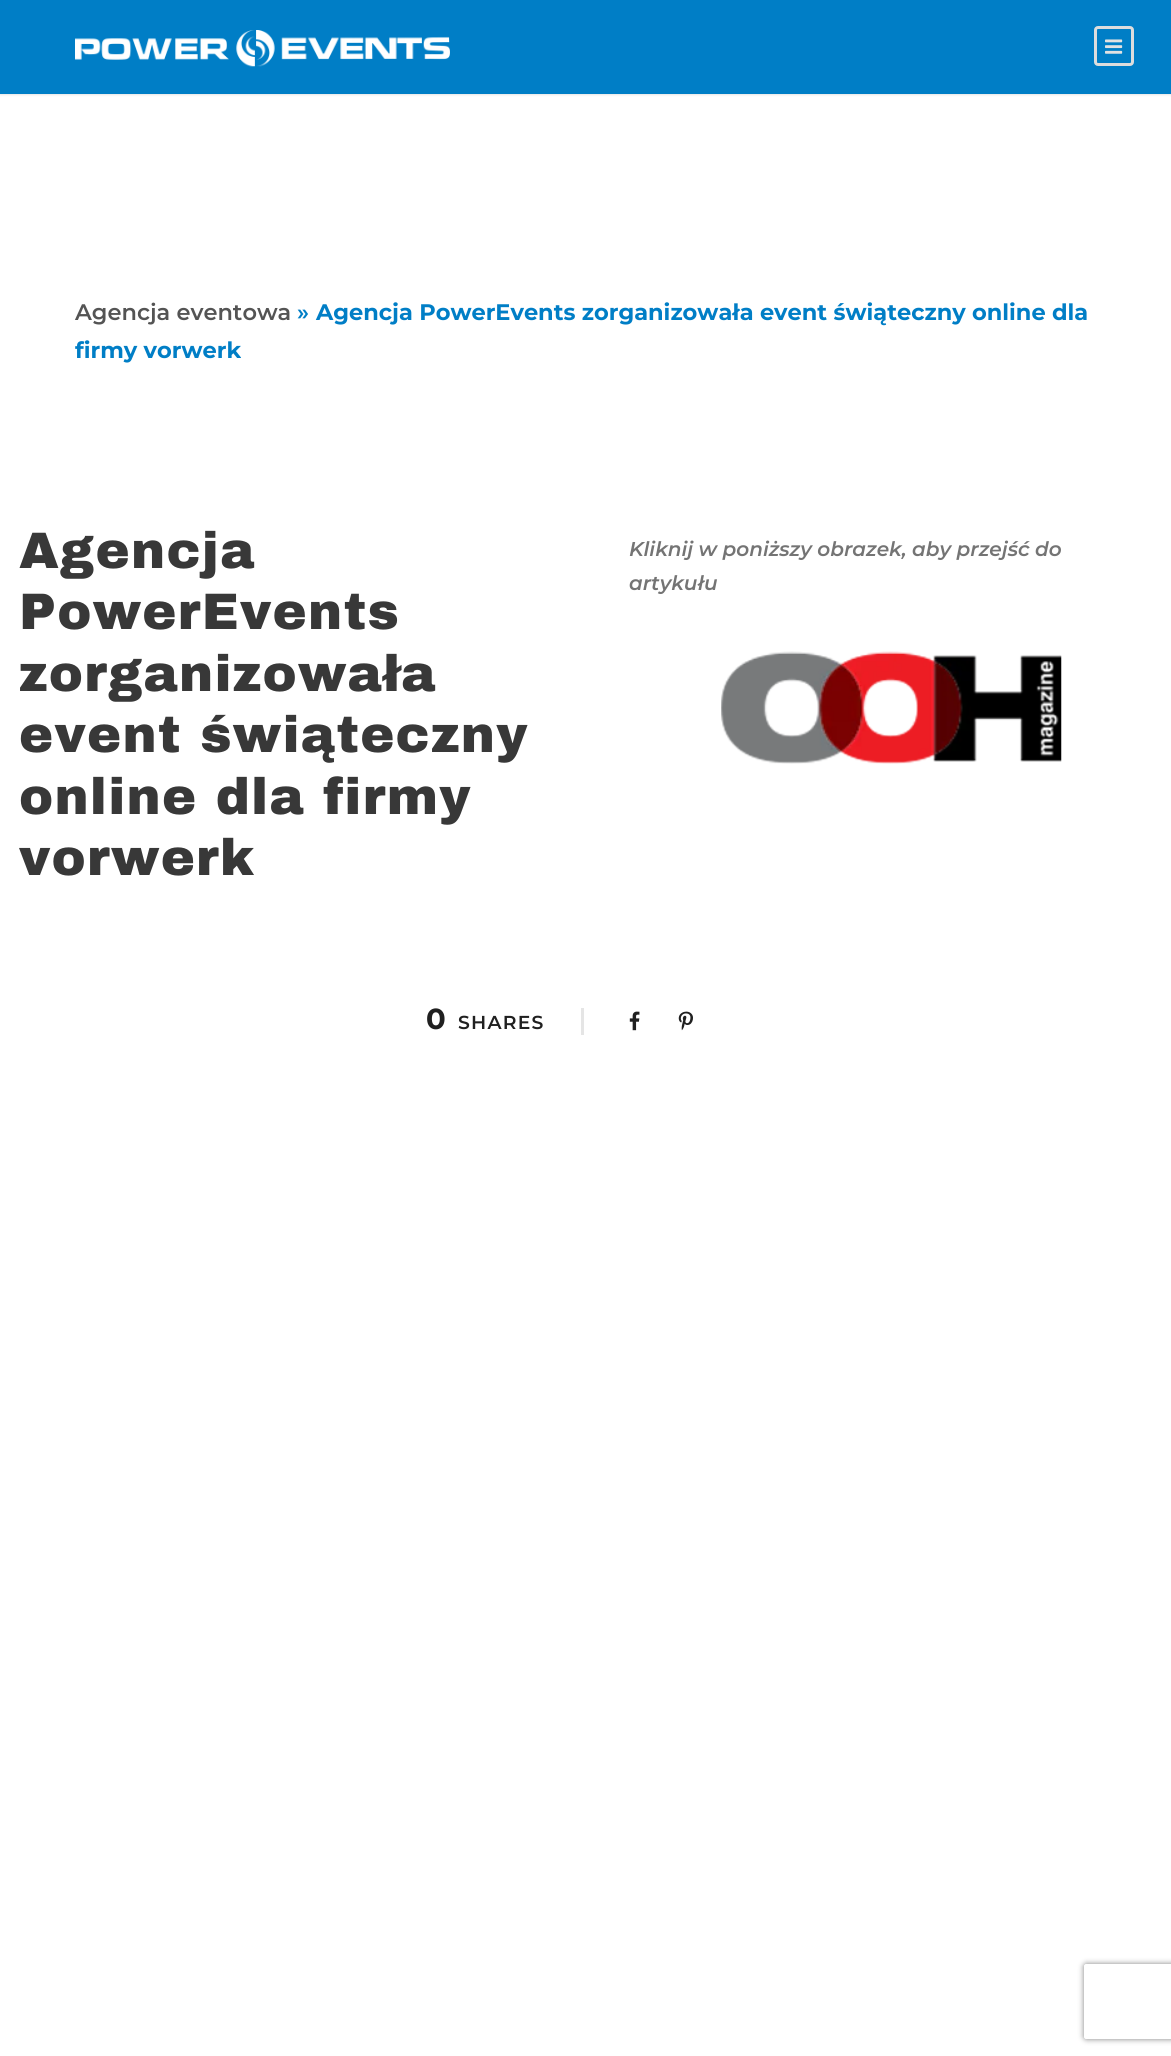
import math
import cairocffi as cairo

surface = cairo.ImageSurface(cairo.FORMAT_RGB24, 1171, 2056)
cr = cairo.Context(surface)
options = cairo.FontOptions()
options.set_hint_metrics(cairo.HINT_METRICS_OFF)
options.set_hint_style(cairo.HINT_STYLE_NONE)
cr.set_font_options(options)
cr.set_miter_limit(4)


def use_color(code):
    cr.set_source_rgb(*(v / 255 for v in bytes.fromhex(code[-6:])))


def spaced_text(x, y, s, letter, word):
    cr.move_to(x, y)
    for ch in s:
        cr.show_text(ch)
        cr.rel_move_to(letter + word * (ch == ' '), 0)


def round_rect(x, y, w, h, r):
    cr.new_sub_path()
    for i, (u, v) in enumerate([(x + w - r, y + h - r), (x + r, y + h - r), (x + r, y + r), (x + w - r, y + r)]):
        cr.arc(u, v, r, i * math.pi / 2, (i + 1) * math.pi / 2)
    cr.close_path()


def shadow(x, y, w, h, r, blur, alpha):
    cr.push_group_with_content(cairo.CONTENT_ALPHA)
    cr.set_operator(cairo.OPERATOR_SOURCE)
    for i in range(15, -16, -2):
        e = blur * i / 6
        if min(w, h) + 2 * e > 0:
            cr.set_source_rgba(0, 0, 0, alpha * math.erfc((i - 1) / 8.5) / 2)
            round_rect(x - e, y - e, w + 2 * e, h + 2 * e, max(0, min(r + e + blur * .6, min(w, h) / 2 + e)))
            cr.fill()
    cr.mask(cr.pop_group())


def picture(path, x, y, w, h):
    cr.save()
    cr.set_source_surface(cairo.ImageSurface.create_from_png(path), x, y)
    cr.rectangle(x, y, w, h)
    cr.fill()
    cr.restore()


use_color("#ffffff")
cr.paint()
use_color("#000000")
shadow(0, 1, 1171, 94, 0, 1, 0.1)
use_color("#007ec6")
cr.rectangle(0, 0, 1171, 94)
cr.fill()
picture("img1.png", 75, 30, 375, 37)
round_rect(1095.5, 27.5, 37, 37, 2.5)
use_color("#dddddd")
cr.set_line_width(3)
cr.stroke()
picture("img2.png", 1105, 39, 18, 15)
cr.select_font_face("Montserrat SemiBold")
cr.set_font_size(22.5)
use_color("#545454")
cr.move_to(75, 320)
cr.show_text("Agencja eventowa")
use_color("#007ec6")
cr.move_to(297, 320)
cr.show_text("»")
cr.select_font_face("Montserrat", cairo.FONT_SLANT_NORMAL, cairo.FONT_WEIGHT_BOLD)
cr.move_to(316, 320)
cr.show_text("Agencja PowerEvents zorganizowała event świąteczny online dla")
cr.move_to(75, 358)
cr.show_text("firmy vorwerk")
cr.select_font_face("Archivo Black Black")
cr.set_font_size(51.25)
use_color("#383838")
spaced_text(19, 568, "Agencja", 1.25, 0)
spaced_text(19, 629, "PowerEvents", 1.25, 0)
spaced_text(19, 691, "zorganizowała", 1.25, 0)
spaced_text(19, 752, "event świąteczny", 1.25, 0)
spaced_text(19, 814, "online dla firmy", 1.25, 0)
spaced_text(19, 875, "vorwerk", 1.25, 0)
cr.select_font_face("Montserrat SemiBold", cairo.FONT_SLANT_ITALIC)
cr.set_font_size(20)
use_color("#747474")
cr.move_to(629, 556)
cr.show_text("Kliknij w poniższy obrazek, aby przejść do")
cr.move_to(629, 590)
cr.show_text("artykułu")
picture("img3.png", 721, 651, 341, 113)
cr.select_font_face("Montserrat", cairo.FONT_SLANT_NORMAL, cairo.FONT_WEIGHT_BOLD)
cr.set_font_size(29)
use_color("#202020")
cr.move_to(426, 1029)
cr.show_text("0")
cr.select_font_face("Montserrat SemiBold")
cr.set_font_size(18.75)
spaced_text(458, 1029, "SHARES", 1.25, 0)
use_color("#e5e5e5")
cr.rectangle(581, 1008, 3, 27)
cr.fill()
picture("img4.png", 629, 1011, 11, 20)
picture("img5.png", 678, 1011, 15, 20)
cr.save()
cr.set_fill_rule(cairo.FILL_RULE_EVEN_ODD)
cr.new_path()
cr.move_to(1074, 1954)
cr.line_to(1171, 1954)
cr.line_to(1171, 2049)
cr.line_to(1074, 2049)
cr.close_path()
cr.move_to(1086.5, 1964)
cr.line_to(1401.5, 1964)
cr.curve_to(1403, 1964, 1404, 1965, 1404, 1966.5)
cr.line_to(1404, 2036.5)
cr.curve_to(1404, 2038, 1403, 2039, 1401.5, 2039)
cr.line_to(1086.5, 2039)
cr.curve_to(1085, 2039, 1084, 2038, 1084, 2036.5)
cr.line_to(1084, 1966.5)
cr.curve_to(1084, 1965, 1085, 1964, 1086.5, 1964)
cr.close_path()
cr.clip()
use_color("#808080")
shadow(1084, 1964, 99, 75, 2.5, 3, 1)
cr.restore()
surface.write_to_png("result.png")
